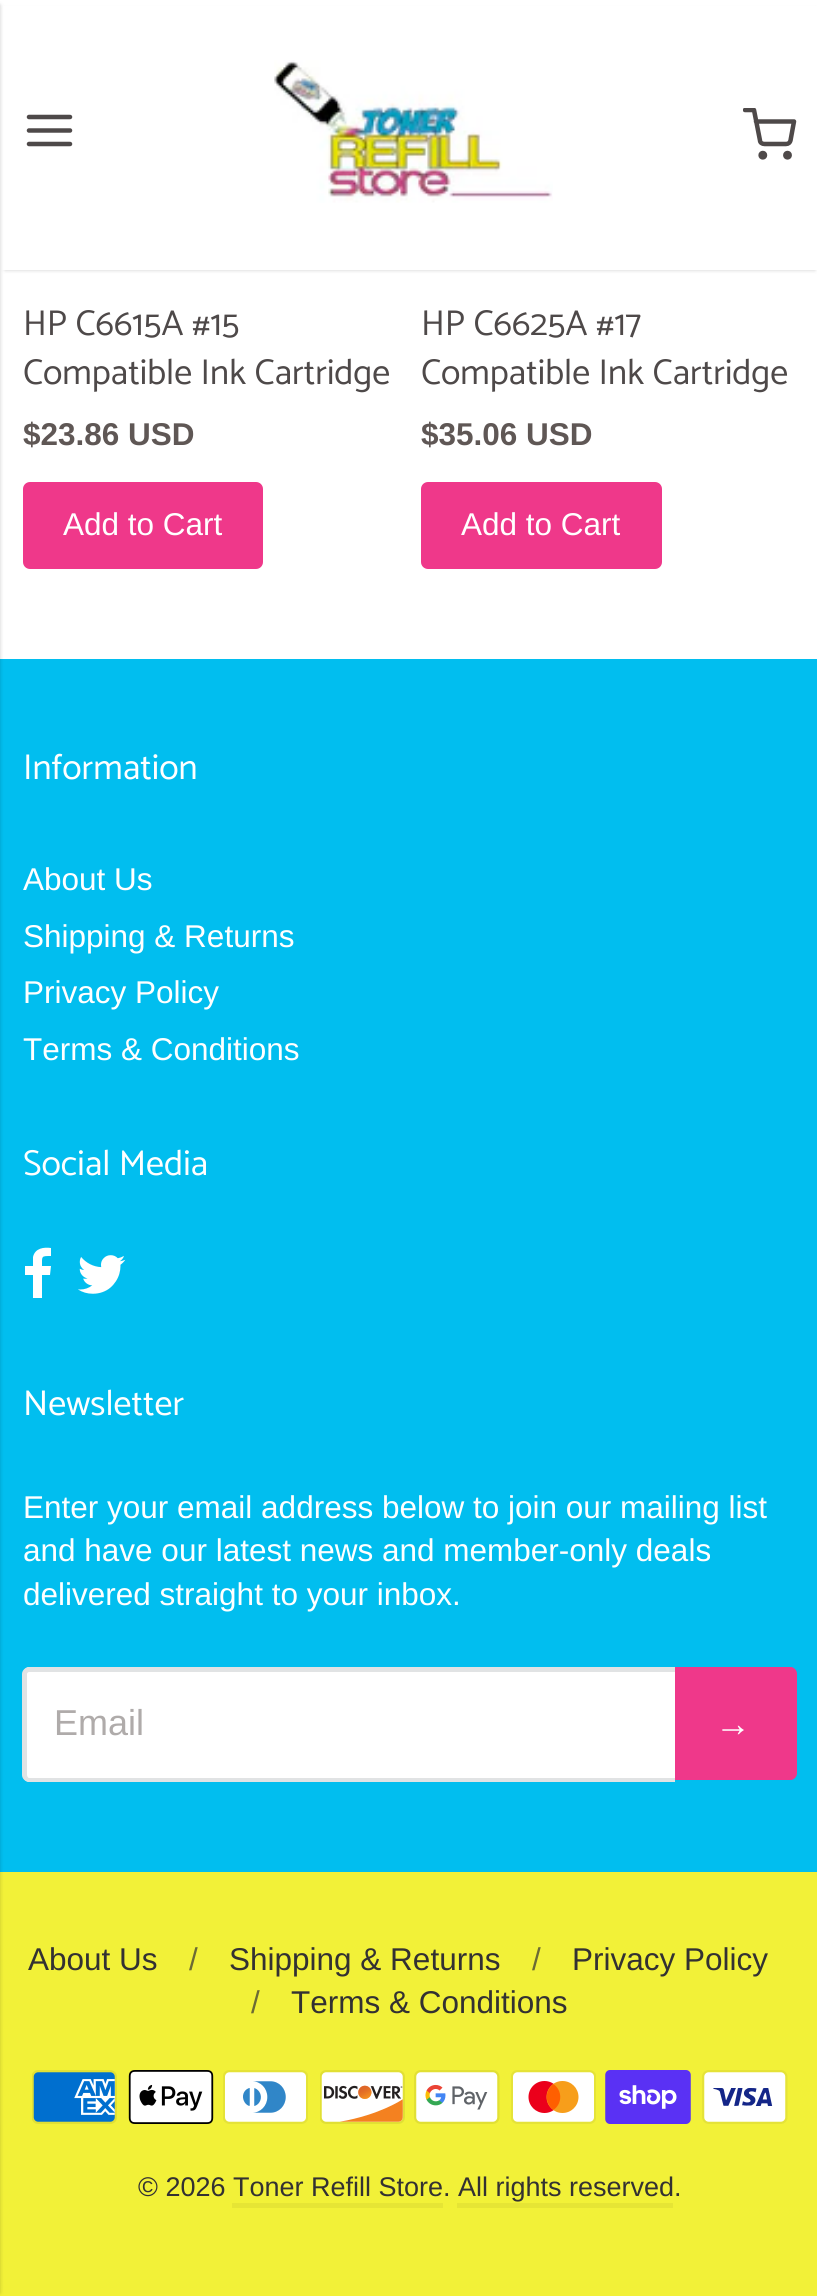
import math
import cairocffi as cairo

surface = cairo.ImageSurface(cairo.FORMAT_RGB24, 817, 2296)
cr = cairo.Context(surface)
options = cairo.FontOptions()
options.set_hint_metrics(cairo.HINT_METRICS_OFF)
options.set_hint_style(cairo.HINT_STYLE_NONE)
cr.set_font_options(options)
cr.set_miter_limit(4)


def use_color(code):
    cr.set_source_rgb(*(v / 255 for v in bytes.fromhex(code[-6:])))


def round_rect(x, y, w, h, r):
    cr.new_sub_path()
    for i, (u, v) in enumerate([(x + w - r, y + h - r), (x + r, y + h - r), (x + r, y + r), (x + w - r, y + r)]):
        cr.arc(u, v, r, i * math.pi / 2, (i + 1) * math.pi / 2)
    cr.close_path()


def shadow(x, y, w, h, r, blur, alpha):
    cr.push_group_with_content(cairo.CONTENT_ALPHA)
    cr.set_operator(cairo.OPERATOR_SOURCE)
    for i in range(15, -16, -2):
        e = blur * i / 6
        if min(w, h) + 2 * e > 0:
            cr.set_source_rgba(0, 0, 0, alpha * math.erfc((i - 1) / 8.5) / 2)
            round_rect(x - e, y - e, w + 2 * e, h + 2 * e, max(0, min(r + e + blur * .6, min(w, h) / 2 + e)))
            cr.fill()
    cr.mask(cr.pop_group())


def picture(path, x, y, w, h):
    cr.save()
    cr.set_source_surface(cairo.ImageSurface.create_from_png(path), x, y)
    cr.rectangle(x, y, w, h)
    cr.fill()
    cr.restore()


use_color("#ffffff")
cr.paint()
use_color("#000000")
shadow(5, 9, 810, 261, 0, 2, 0.2)
use_color("#ffffff")
cr.rectangle(2, 6, 815, 264)
cr.fill()
use_color("#01beef")
cr.rectangle(0, 659, 817, 1213)
cr.fill()
use_color("#f2f138")
cr.rectangle(0, 1872, 817, 424)
cr.fill()
use_color("#000000")
shadow(-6, 5, 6, 2288, 0, 2, 0.2)
cr.new_path()
cr.move_to(29, 130.5)
cr.line_to(70, 130.5)
cr.move_to(29, 117)
cr.line_to(70, 117)
cr.move_to(29, 144)
cr.line_to(70, 144)
use_color("#4e4949")
cr.set_line_width(4.5)
cr.set_line_cap(cairo.LINE_CAP_ROUND)
cr.set_line_join(cairo.LINE_JOIN_ROUND)
cr.stroke()
picture("img1.png", 274, 60, 279, 143)
cr.save()
cr.rectangle(743, 108, 54, 54)
cr.clip()
cr.new_path()
cr.move_to(745, 110)
cr.line_to(754, 110)
cr.line_to(760, 140.5)
cr.curve_to(760, 142.5, 762, 144, 764.5, 144)
cr.line_to(786, 144)
cr.curve_to(788.5, 144, 790, 142.5, 790.5, 140.5)
cr.line_to(794, 121.5)
cr.line_to(756, 121.5)
cr.stroke()
cr.restore()
cr.arc(762.8, 155.2, 2.2, 0, 2 * math.pi)
cr.set_line_cap(cairo.LINE_CAP_BUTT)
cr.set_line_join(cairo.LINE_JOIN_MITER)
cr.stroke()
cr.arc(787.5, 155.2, 2.2, 0, 2 * math.pi)
cr.stroke()
cr.select_font_face("Catamaran")
cr.set_font_size(36)
cr.move_to(23, 335)
cr.show_text("HP C6615A #15")
cr.move_to(23, 384)
cr.show_text("Compatible Ink Cartridge")
cr.select_font_face("Liberation Sans", cairo.FONT_SLANT_NORMAL, cairo.FONT_WEIGHT_BOLD)
cr.set_font_size(31.5)
use_color("#5f5755")
cr.move_to(23, 445)
cr.show_text("$23.86 USD")
use_color("#ef388a")
round_rect(25.5, 484.5, 235, 82, 4.5)
cr.fill_preserve()
cr.set_line_width(5)
cr.stroke()
cr.select_font_face("Liberation Sans")
use_color("#ffffff")
cr.move_to(63, 535)
cr.show_text("Add to Cart")
cr.select_font_face("Catamaran")
cr.set_font_size(36)
use_color("#4e4949")
cr.move_to(421, 335)
cr.show_text("HP C6625A #17")
cr.move_to(421, 384)
cr.show_text("Compatible Ink Cartridge")
cr.select_font_face("Liberation Sans", cairo.FONT_SLANT_NORMAL, cairo.FONT_WEIGHT_BOLD)
cr.set_font_size(31.5)
use_color("#5f5755")
cr.move_to(421, 445)
cr.show_text("$35.06 USD")
use_color("#ef388a")
round_rect(423.5, 484.5, 236, 82, 4.5)
cr.fill_preserve()
cr.stroke()
cr.select_font_face("Liberation Sans")
use_color("#ffffff")
cr.move_to(461, 535)
cr.show_text("Add to Cart")
cr.select_font_face("Catamaran")
cr.set_font_size(36)
cr.move_to(23, 779)
cr.show_text("Information")
cr.select_font_face("Liberation Sans")
cr.set_font_size(31.5)
cr.move_to(23, 890)
cr.show_text("About Us")
cr.move_to(23, 947)
cr.show_text("Shipping & Returns")
cr.move_to(23, 1003)
cr.show_text("Privacy Policy")
cr.move_to(23, 1060)
cr.show_text("Terms & Conditions")
cr.select_font_face("Catamaran")
cr.set_font_size(36)
cr.move_to(23, 1175)
cr.show_text("Social Media")
cr.new_path()
cr.move_to(51, 1248)
cr.line_to(51, 1256)
cr.curve_to(41, 1256, 42, 1256, 42, 1266)
cr.line_to(51, 1266)
cr.line_to(50, 1275)
cr.line_to(42, 1275)
cr.line_to(42, 1298)
cr.line_to(33, 1298)
cr.line_to(33, 1275)
cr.line_to(25, 1275)
cr.line_to(25, 1266)
cr.line_to(33, 1266)
cr.line_to(33, 1257)
cr.curve_to(35, 1248, 44, 1247, 51, 1248)
cr.close_path()
cr.fill()
picture("img2.png", 78, 1255, 48, 39)
cr.move_to(23, 1415)
cr.show_text("Newsletter")
cr.select_font_face("Liberation Sans")
cr.set_font_size(31.5)
cr.move_to(23, 1518)
cr.show_text("Enter your email address below to join our mailing list")
cr.move_to(23, 1561)
cr.show_text("and have our latest news and member-only deals")
cr.move_to(23, 1605)
cr.show_text("delivered straight to your inbox.")
cr.new_path()
cr.move_to(30, 1667)
cr.line_to(675, 1667)
cr.line_to(675, 1782)
cr.line_to(30, 1782)
cr.curve_to(26, 1782, 23, 1779, 23, 1775)
cr.line_to(23, 1674)
cr.curve_to(23, 1670, 26, 1667, 30, 1667)
cr.close_path()
cr.fill()
use_color("#e1e3e4")
cr.set_fill_rule(cairo.FILL_RULE_EVEN_ODD)
cr.new_path()
cr.move_to(29, 1667)
cr.line_to(675, 1667)
cr.line_to(675, 1782)
cr.line_to(29, 1782)
cr.curve_to(26, 1782, 22, 1779, 22, 1775)
cr.line_to(22, 1674)
cr.curve_to(22, 1670, 26, 1667, 29, 1667)
cr.close_path()
cr.move_to(29, 1672)
cr.line_to(675, 1672)
cr.line_to(675, 1778)
cr.line_to(29, 1778)
cr.curve_to(28, 1778, 27, 1776, 27, 1775)
cr.line_to(27, 1674)
cr.curve_to(27, 1673, 28, 1672, 29, 1672)
cr.close_path()
cr.fill()
cr.set_font_size(36)
use_color("#afabaa")
cr.move_to(54, 1735)
cr.show_text("Email")
use_color("#ef388a")
cr.new_path()
cr.move_to(675, 1667)
cr.line_to(790, 1667)
cr.curve_to(794, 1667, 797, 1670, 797, 1674)
cr.line_to(797, 1773)
cr.curve_to(797, 1777, 794, 1780, 790, 1780)
cr.line_to(675, 1780)
cr.close_path()
cr.fill()
cr.new_path()
cr.move_to(675, 1667)
cr.line_to(790, 1667)
cr.curve_to(793, 1667, 796, 1670, 796, 1674)
cr.line_to(796, 1773)
cr.curve_to(796, 1777, 793, 1780, 790, 1780)
cr.line_to(675, 1780)
cr.close_path()
cr.move_to(675, 1672)
cr.line_to(790, 1672)
cr.curve_to(791, 1672, 792, 1673, 792, 1674)
cr.line_to(792, 1773)
cr.curve_to(792, 1774, 791, 1775, 790, 1775)
cr.line_to(675, 1775)
cr.close_path()
cr.fill()
use_color("#ffffff")
cr.move_to(715, 1736)
cr.show_text("→")
cr.set_font_size(31.5)
use_color("#333132")
cr.move_to(28, 1970)
cr.show_text("About Us")
use_color("#6c6b34")
cr.move_to(189, 1970)
cr.show_text("/")
use_color("#333132")
cr.move_to(229, 1970)
cr.show_text("Shipping & Returns")
use_color("#6c6b34")
cr.move_to(532, 1970)
cr.show_text("/")
use_color("#333132")
cr.move_to(572, 1970)
cr.show_text("Privacy Policy")
use_color("#6c6b34")
cr.move_to(251, 2013)
cr.show_text("/")
use_color("#333132")
cr.move_to(291, 2013)
cr.show_text("Terms & Conditions")
picture("img3.png", 32, 2070, 85, 54)
picture("img4.png", 128, 2070, 86, 54)
picture("img5.png", 223, 2070, 85, 54)
picture("img6.png", 320, 2070, 85, 54)
picture("img7.png", 414, 2070, 86, 54)
picture("img8.png", 511, 2070, 85, 54)
picture("img9.png", 605, 2070, 86, 54)
picture("img10.png", 702, 2070, 86, 54)
cr.set_font_size(27)
cr.move_to(138, 2196)
cr.show_text("© 2026 Toner Refill Store. All rights reserved.")
use_color("#e6e535")
cr.rectangle(232, 2203, 211, 5)
cr.fill()
cr.rectangle(457, 2203, 216, 5)
cr.fill()
surface.write_to_png("result.png")
